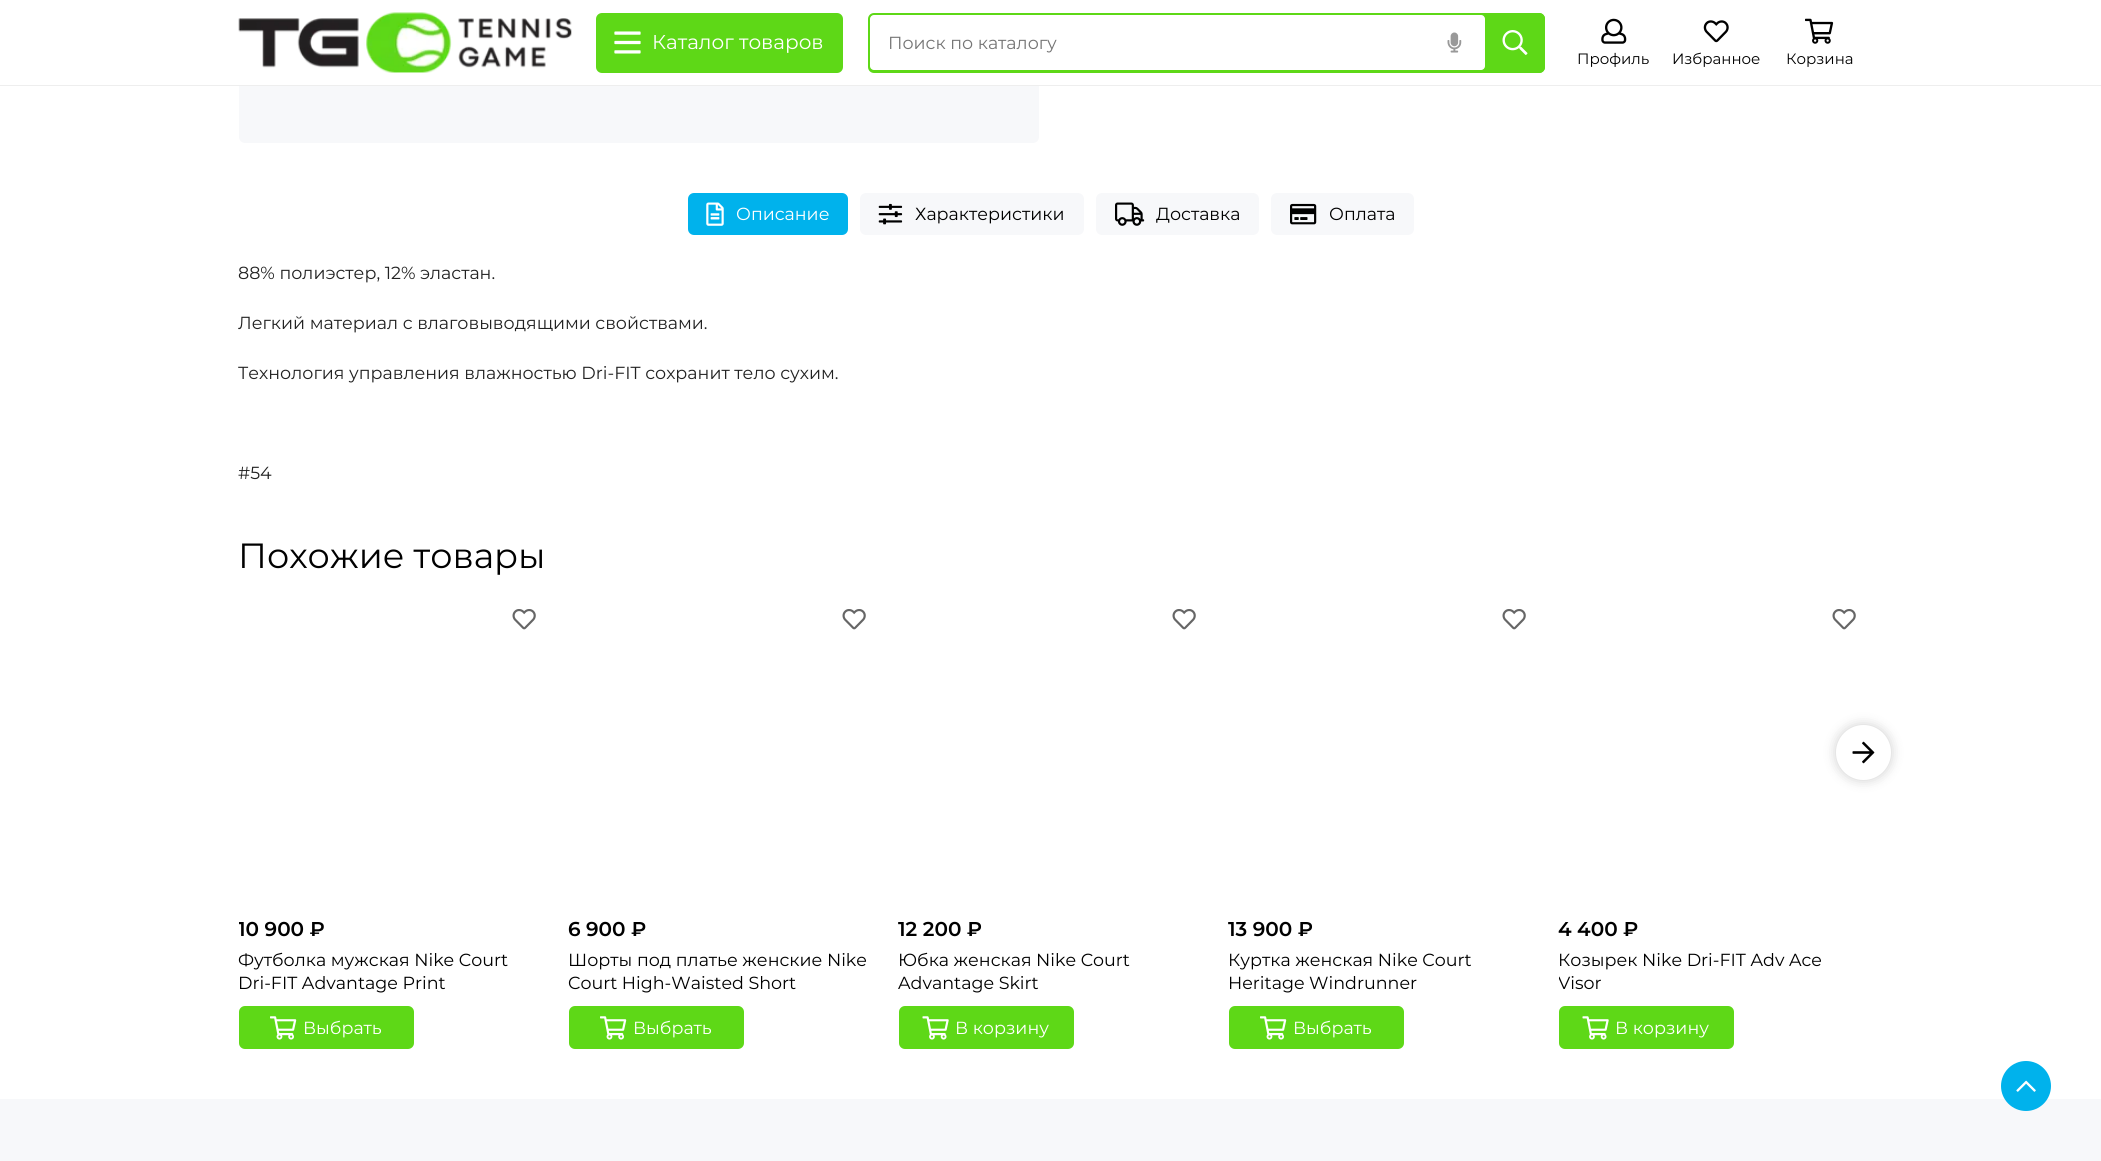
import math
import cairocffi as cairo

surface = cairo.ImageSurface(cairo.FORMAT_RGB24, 2101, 1161)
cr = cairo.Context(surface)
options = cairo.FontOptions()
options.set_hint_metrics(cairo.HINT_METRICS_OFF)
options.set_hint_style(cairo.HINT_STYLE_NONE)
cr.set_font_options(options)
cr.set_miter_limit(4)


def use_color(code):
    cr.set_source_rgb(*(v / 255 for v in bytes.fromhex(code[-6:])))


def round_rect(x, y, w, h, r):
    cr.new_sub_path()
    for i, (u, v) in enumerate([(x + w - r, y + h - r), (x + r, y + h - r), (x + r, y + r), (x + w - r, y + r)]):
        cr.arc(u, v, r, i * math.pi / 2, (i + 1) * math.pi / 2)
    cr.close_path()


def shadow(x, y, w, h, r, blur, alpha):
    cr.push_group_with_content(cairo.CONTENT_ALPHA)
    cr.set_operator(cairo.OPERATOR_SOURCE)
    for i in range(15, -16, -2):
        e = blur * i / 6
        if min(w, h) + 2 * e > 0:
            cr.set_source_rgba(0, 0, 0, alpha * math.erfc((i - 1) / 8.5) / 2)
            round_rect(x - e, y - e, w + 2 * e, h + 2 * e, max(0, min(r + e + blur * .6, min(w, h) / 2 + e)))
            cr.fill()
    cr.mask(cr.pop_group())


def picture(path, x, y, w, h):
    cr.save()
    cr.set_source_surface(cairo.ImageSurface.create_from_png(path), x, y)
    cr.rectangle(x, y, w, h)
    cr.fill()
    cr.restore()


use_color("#ffffff")
cr.paint()
use_color("#f7f8fa")
round_rect(239, -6, 800, 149, 6)
cr.fill()
use_color("#eeeeee")
cr.rectangle(0, 85, 2101, 1)
cr.fill()
use_color("#ffffff")
cr.rectangle(239, 0, 800, 85)
cr.fill()
picture("img1.png", 238, 12, 334, 61)
use_color("#5ed817")
round_rect(596, 13, 247, 60, 6)
cr.fill()
picture("img2.png", 614, 31, 27, 23)
cr.select_font_face("Montserrat")
cr.set_font_size(20)
use_color("#ffffff")
cr.move_to(652, 49)
cr.show_text("Каталог товаров")
use_color("#5ed817")
round_rect(868, 13, 677, 60, 6)
cr.fill()
use_color("#ffffff")
round_rect(870, 15, 615, 55, 4)
cr.fill()
cr.set_font_size(17.5)
use_color("#757575")
cr.move_to(888, 49)
cr.show_text("Поиск по каталогу")
picture("img3.png", 1447, 32, 15, 21)
use_color("#5ed817")
cr.new_path()
cr.move_to(1485, 13)
cr.line_to(1539, 13)
cr.curve_to(1542.5, 13, 1545, 15.5, 1545, 19)
cr.line_to(1545, 67)
cr.curve_to(1545, 70.5, 1542.5, 73, 1539, 73)
cr.line_to(1485, 73)
cr.close_path()
cr.fill()
picture("img4.png", 1502, 30, 26, 25)
picture("img5.png", 1601, 18, 26, 26)
cr.set_font_size(15)
use_color("#000000")
cr.move_to(1577, 64)
cr.show_text("Профиль")
picture("img6.png", 1703, 20, 26, 23)
cr.move_to(1672, 64)
cr.show_text("Избранное")
picture("img7.png", 1805, 18, 29, 26)
cr.move_to(1786, 64)
cr.show_text("Корзина")
use_color("#00b2ec")
round_rect(688, 193, 160, 42, 6)
cr.fill()
picture("img8.png", 706, 202, 18, 24)
cr.set_font_size(17.5)
use_color("#ffffff")
cr.move_to(736, 220)
cr.show_text("Описание")
use_color("#f7f8fa")
round_rect(860, 193, 224, 42, 6)
cr.fill()
picture("img9.png", 878, 203, 25, 22)
use_color("#000000")
cr.move_to(915, 220)
cr.show_text("Характеристики")
use_color("#f7f8fa")
round_rect(1096, 193, 163, 42, 6)
cr.fill()
picture("img10.png", 1115, 202, 30, 24)
use_color("#000000")
cr.move_to(1156, 220)
cr.show_text("Доставка")
use_color("#f7f8fa")
round_rect(1271, 193, 143, 42, 6)
cr.fill()
picture("img11.png", 1290, 203, 27, 22)
use_color("#000000")
cr.move_to(1329, 220)
cr.show_text("Оплата")
use_color("#222222")
cr.move_to(238, 279)
cr.show_text("88% полиэстер, 12% эластан.")
cr.move_to(238, 329)
cr.show_text("Легкий материал с влаговыводящими свойствами.")
cr.move_to(238, 379)
cr.show_text("Технология управления влажностью Dri-FIT сохранит тело сухим.")
cr.move_to(238, 479)
cr.show_text("#54")
cr.set_font_size(35)
use_color("#000000")
cr.move_to(238, 568)
cr.show_text("Похожие товары")
use_color("#000000")
shadow(1836, 725, 55, 55, 27.5, 6, 0.2)
use_color("#ffffff")
cr.arc(1863.5, 752.5, 27.5, 0, 2 * math.pi)
cr.fill()
picture("img12.png", 1852, 741, 23, 23)
picture("img13.png", 512, 609, 24, 21)
cr.save()
cr.rectangle(239, 600, 1625, 449)
cr.clip()
cr.select_font_face("Montserrat SemiBold")
cr.set_font_size(20)
use_color("#000000")
cr.move_to(238, 936)
cr.show_text("10 900 ₽")
cr.restore()
cr.set_font_size(17.5)
use_color("#000000")
cr.move_to(238, 966)
cr.show_text("Футболка мужская Nike Court")
cr.move_to(238, 989)
cr.show_text("Dri-FIT Advantage Print")
use_color("#5ed817")
round_rect(239, 1006, 175, 43, 6)
cr.fill()
picture("img14.png", 270, 1016, 27, 24)
use_color("#ffffff")
cr.move_to(303, 1034)
cr.show_text("Выбрать")
picture("img13.png", 842, 609, 24, 21)
cr.select_font_face("Montserrat SemiBold")
cr.set_font_size(20)
use_color("#000000")
cr.move_to(568, 936)
cr.show_text("6 900 ₽")
cr.select_font_face("Montserrat")
cr.set_font_size(17.5)
cr.move_to(568, 966)
cr.show_text("Шорты под платье женские Nike")
cr.move_to(568, 989)
cr.show_text("Court High-Waisted Short")
use_color("#5ed817")
round_rect(569, 1006, 175, 43, 6)
cr.fill()
picture("img14.png", 600, 1016, 27, 24)
use_color("#ffffff")
cr.move_to(633, 1034)
cr.show_text("Выбрать")
picture("img13.png", 1172, 609, 24, 21)
cr.select_font_face("Montserrat SemiBold")
cr.set_font_size(20)
use_color("#000000")
cr.move_to(898, 936)
cr.show_text("12 200 ₽")
cr.select_font_face("Montserrat")
cr.set_font_size(17.5)
cr.move_to(898, 966)
cr.show_text("Юбка женская Nike Court")
cr.move_to(898, 989)
cr.show_text("Advantage Skirt")
use_color("#5ed817")
round_rect(899, 1006, 175, 43, 6)
cr.fill()
picture("img15.png", 922, 1016, 27, 24)
use_color("#ffffff")
cr.move_to(955, 1034)
cr.show_text("В корзину")
picture("img13.png", 1502, 609, 24, 21)
cr.select_font_face("Montserrat SemiBold")
cr.set_font_size(20)
use_color("#000000")
cr.move_to(1228, 936)
cr.show_text("13 900 ₽")
cr.select_font_face("Montserrat")
cr.set_font_size(17.5)
cr.move_to(1228, 966)
cr.show_text("Куртка женская Nike Court")
cr.move_to(1228, 989)
cr.show_text("Heritage Windrunner")
use_color("#5ed817")
round_rect(1229, 1006, 175, 43, 6)
cr.fill()
picture("img14.png", 1260, 1016, 27, 24)
use_color("#ffffff")
cr.move_to(1293, 1034)
cr.show_text("Выбрать")
picture("img13.png", 1832, 609, 24, 21)
cr.select_font_face("Montserrat SemiBold")
cr.set_font_size(20)
use_color("#000000")
cr.move_to(1558, 936)
cr.show_text("4 400 ₽")
cr.select_font_face("Montserrat")
cr.set_font_size(17.5)
cr.move_to(1558, 966)
cr.show_text("Козырек Nike Dri-FIT Adv Ace")
cr.save()
cr.rectangle(1559, 949, 305, 45)
cr.clip()
cr.move_to(1558, 989)
cr.show_text("Visor")
cr.restore()
use_color("#5ed817")
round_rect(1559, 1006, 175, 43, 6)
cr.fill()
picture("img15.png", 1582, 1016, 27, 24)
use_color("#ffffff")
cr.move_to(1615, 1034)
cr.show_text("В корзину")
use_color("#f7f8fa")
cr.rectangle(0, 1099, 2101, 62)
cr.fill()
use_color("#00b2ec")
cr.arc(2026, 1086, 25, 0, 2 * math.pi)
cr.fill()
picture("img16.png", 2016, 1080, 20, 12)
surface.write_to_png("result.png")
